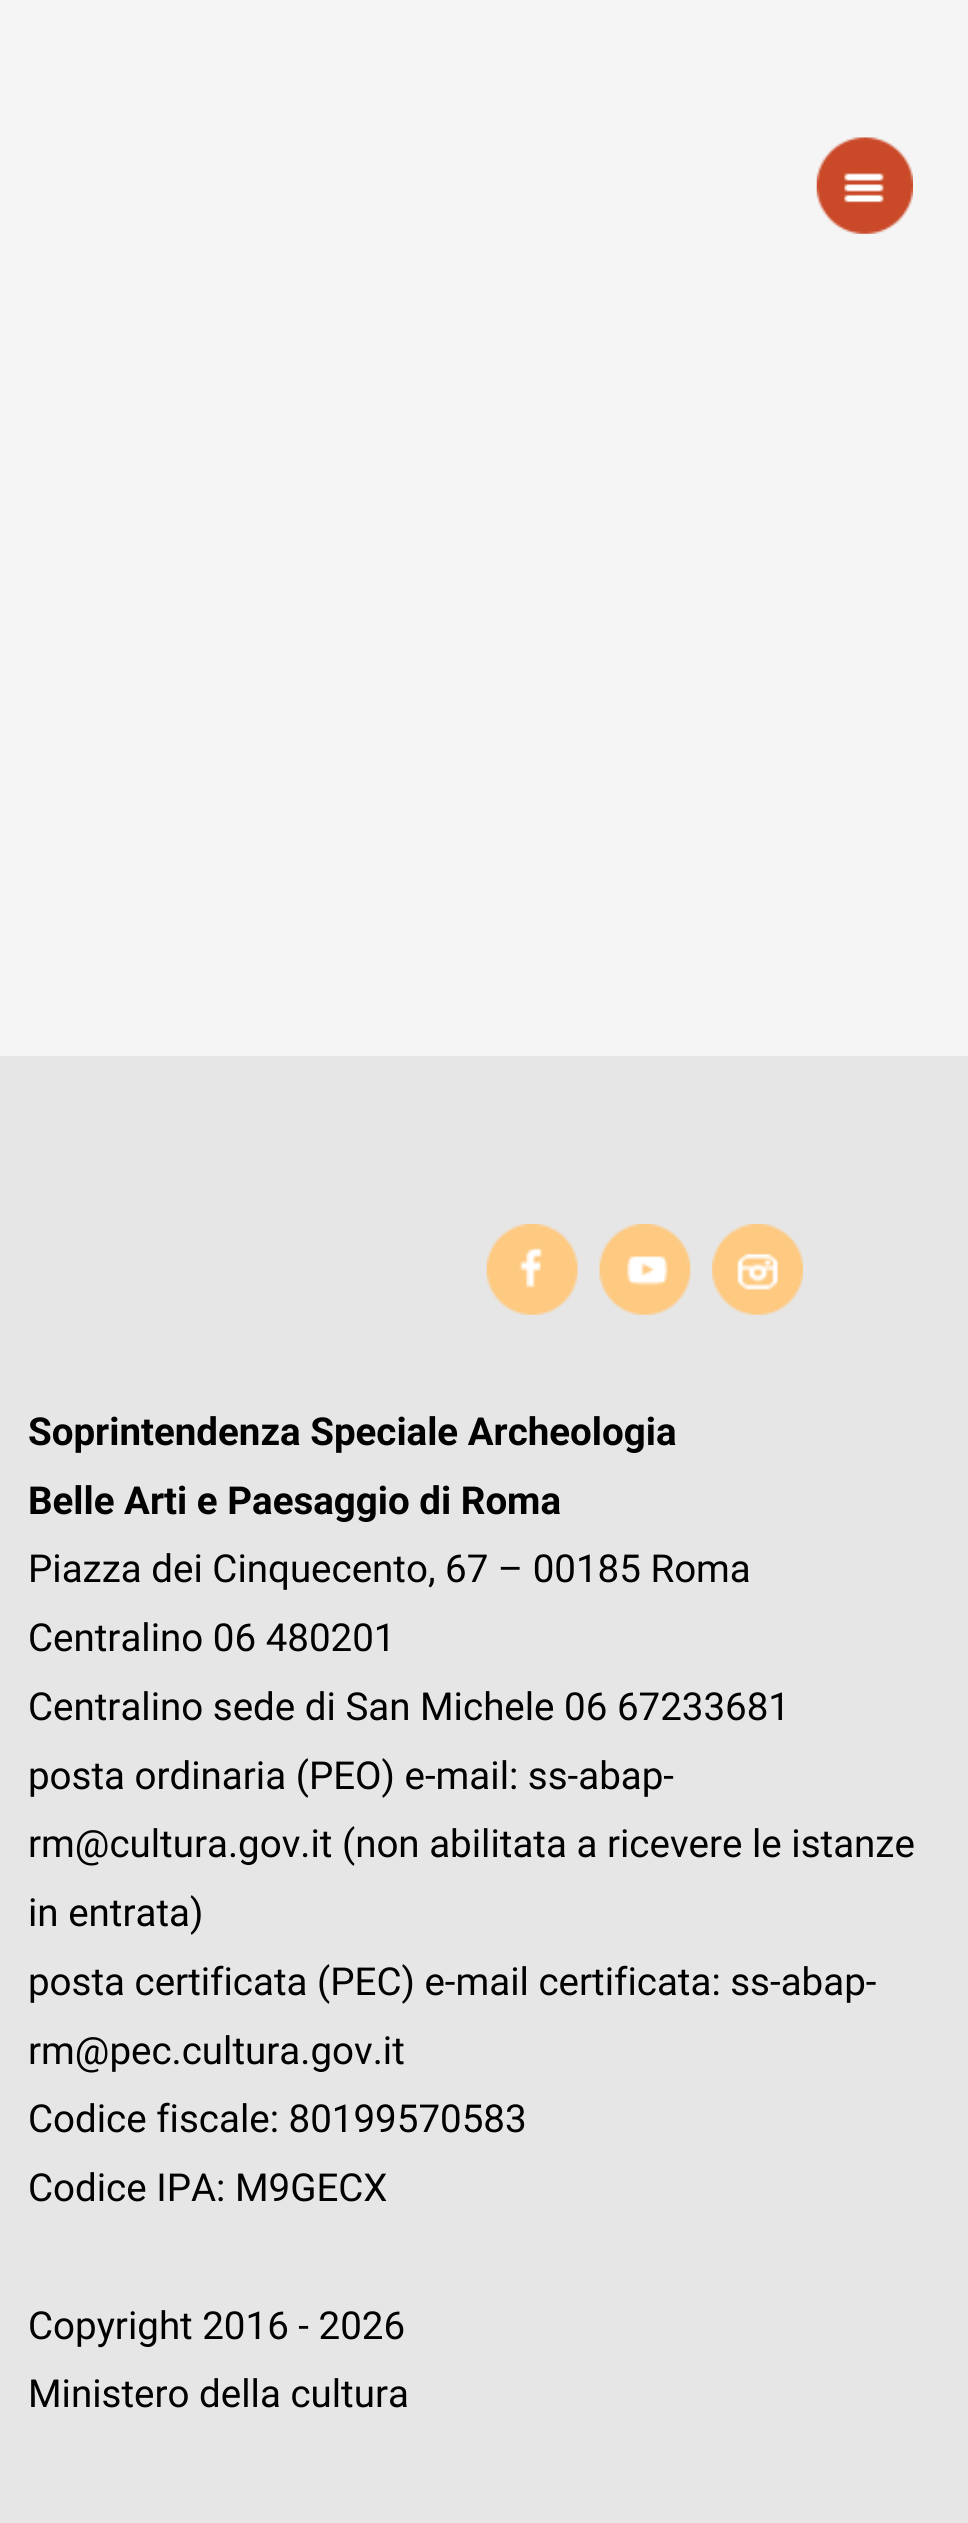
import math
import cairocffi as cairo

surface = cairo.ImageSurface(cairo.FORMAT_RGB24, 968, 2523)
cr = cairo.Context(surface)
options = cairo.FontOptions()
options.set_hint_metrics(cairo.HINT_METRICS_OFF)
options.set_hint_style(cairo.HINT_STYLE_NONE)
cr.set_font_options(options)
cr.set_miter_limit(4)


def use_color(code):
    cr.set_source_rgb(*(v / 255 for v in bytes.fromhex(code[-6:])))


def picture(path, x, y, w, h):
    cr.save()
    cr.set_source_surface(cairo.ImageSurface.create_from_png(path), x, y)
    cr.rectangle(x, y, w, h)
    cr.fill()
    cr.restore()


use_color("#f5f5f5")
cr.paint()
picture("img1.png", 816, 137, 97, 97)
use_color("#e6e6e6")
cr.rectangle(0, 1056, 968, 1467)
cr.fill()
picture("img2.png", 486, 1224, 92, 91)
picture("img3.png", 599, 1224, 92, 91)
picture("img4.png", 712, 1224, 91, 91)
cr.select_font_face("Roboto", cairo.FONT_SLANT_NORMAL, cairo.FONT_WEIGHT_BOLD)
cr.set_font_size(38.5)
use_color("#010101")
cr.move_to(28, 1445)
cr.show_text("Soprintendenza Speciale Archeologia")
cr.move_to(28, 1514)
cr.show_text("Belle Arti e Paesaggio di Roma")
cr.select_font_face("Roboto")
cr.move_to(28, 1582)
cr.show_text("Piazza dei Cinquecento, 67 – 00185 Roma")
cr.move_to(28, 1651)
cr.show_text("Centralino 06 480201")
cr.move_to(28, 1720)
cr.show_text("Centralino sede di San Michele 06 67233681")
cr.move_to(28, 1789)
cr.show_text("posta ordinaria (PEO) e-mail: ss-abap-")
cr.move_to(28, 1857)
cr.show_text("rm@cultura.gov.it (non abilitata a ricevere le istanze")
cr.move_to(28, 1926)
cr.show_text("in entrata)")
cr.move_to(28, 1995)
cr.show_text("posta certificata (PEC) e-mail certificata: ss-abap-")
cr.move_to(28, 2064)
cr.show_text("rm@pec.cultura.gov.it")
cr.move_to(28, 2132)
cr.show_text("Codice fiscale: 80199570583")
cr.move_to(28, 2201)
cr.show_text("Codice IPA: M9GECX")
cr.move_to(28, 2339)
cr.show_text("Copyright 2016 - 2026")
cr.move_to(28, 2407)
cr.show_text("Ministero della cultura")
surface.write_to_png("result.png")
